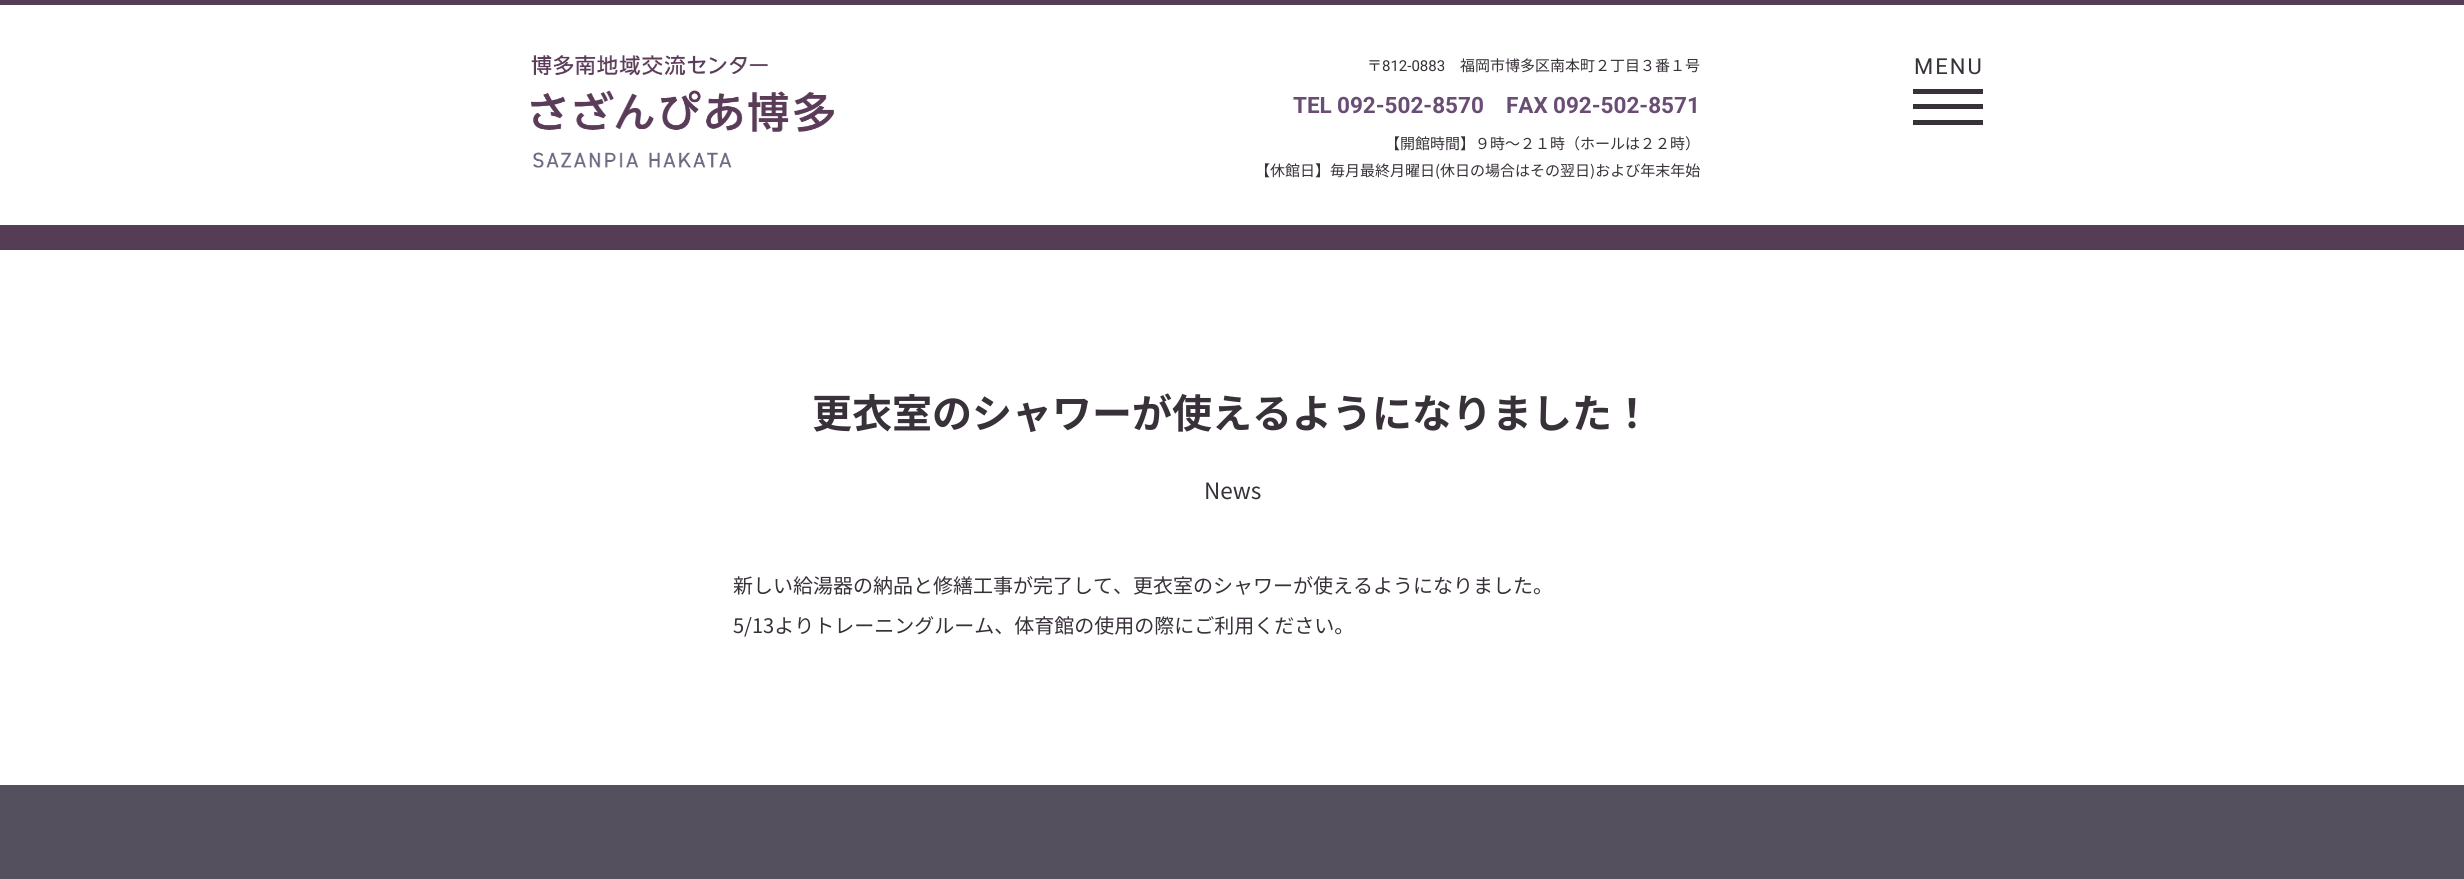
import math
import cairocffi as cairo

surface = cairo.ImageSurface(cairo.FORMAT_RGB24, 2464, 879)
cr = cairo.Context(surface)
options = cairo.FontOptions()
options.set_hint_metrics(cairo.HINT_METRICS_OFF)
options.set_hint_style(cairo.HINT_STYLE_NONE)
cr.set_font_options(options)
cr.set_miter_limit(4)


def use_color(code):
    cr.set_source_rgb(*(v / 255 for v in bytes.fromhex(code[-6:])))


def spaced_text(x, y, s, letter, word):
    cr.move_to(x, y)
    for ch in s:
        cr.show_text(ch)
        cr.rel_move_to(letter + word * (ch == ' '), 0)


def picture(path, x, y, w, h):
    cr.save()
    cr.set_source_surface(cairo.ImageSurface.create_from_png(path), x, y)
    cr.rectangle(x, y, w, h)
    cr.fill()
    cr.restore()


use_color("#ffffff")
cr.paint()
use_color("#553d56")
cr.rectangle(0, 0, 2464, 5)
cr.fill()
picture("img1.png", 531, 55, 303, 113)
cr.select_font_face("Noto Sans JP")
cr.set_font_size(15)
use_color("#383139")
cr.move_to(1367, 71)
cr.show_text("〒")
cr.select_font_face("Roboto")
cr.move_to(1382, 71)
cr.show_text("812-0883")
cr.select_font_face("Noto Sans JP")
cr.move_to(1460, 71)
cr.show_text("福岡市博多区南本町２丁目３番１号")
cr.select_font_face("Roboto", cairo.FONT_SLANT_NORMAL, cairo.FONT_WEIGHT_BOLD)
cr.set_font_size(22.5)
use_color("#6a4d74")
cr.move_to(1293, 113)
cr.show_text("TEL")
cr.move_to(1337, 113)
cr.show_text("092-502-8570")
cr.move_to(1506, 113)
cr.show_text("FAX")
cr.move_to(1553, 113)
cr.show_text("092-502-8571")
cr.select_font_face("Noto Sans JP")
cr.set_font_size(15)
use_color("#383139")
cr.move_to(1385, 149)
cr.show_text("【開館時間】９時～２１時（ホールは２２時）")
cr.move_to(1255, 176)
cr.show_text("【休館日】毎月最終月曜日(休日の場合はその翌日)および年末年始")
cr.select_font_face("Roboto")
cr.set_font_size(22)
spaced_text(1914, 74, "MENU", 2, 0)
cr.rectangle(1913, 89, 70, 5)
cr.fill()
cr.rectangle(1913, 104, 70, 5)
cr.fill()
cr.rectangle(1913, 120, 70, 5)
cr.fill()
use_color("#553d56")
cr.rectangle(0, 225, 2464, 25)
cr.fill()
cr.select_font_face("Noto Sans JP", cairo.FONT_SLANT_NORMAL, cairo.FONT_WEIGHT_BOLD)
cr.set_font_size(40)
use_color("#383139")
cr.move_to(812, 428)
cr.show_text("更衣室のシャワーが使えるようになりました！")
cr.select_font_face("Noto Sans JP")
cr.set_font_size(22.5)
cr.move_to(1204, 499)
cr.show_text("News")
cr.set_font_size(20)
cr.move_to(733, 593)
cr.show_text("新しい給湯器の納品と修繕工事が完了して、更衣室のシャワーが使えるようになりました。")
cr.move_to(733, 633)
cr.show_text("5/13よりトレーニングルーム、体育館の使用の際にご利用ください。")
use_color("#54505d")
cr.rectangle(0, 785, 2464, 94)
cr.fill()
surface.write_to_png("result.png")
